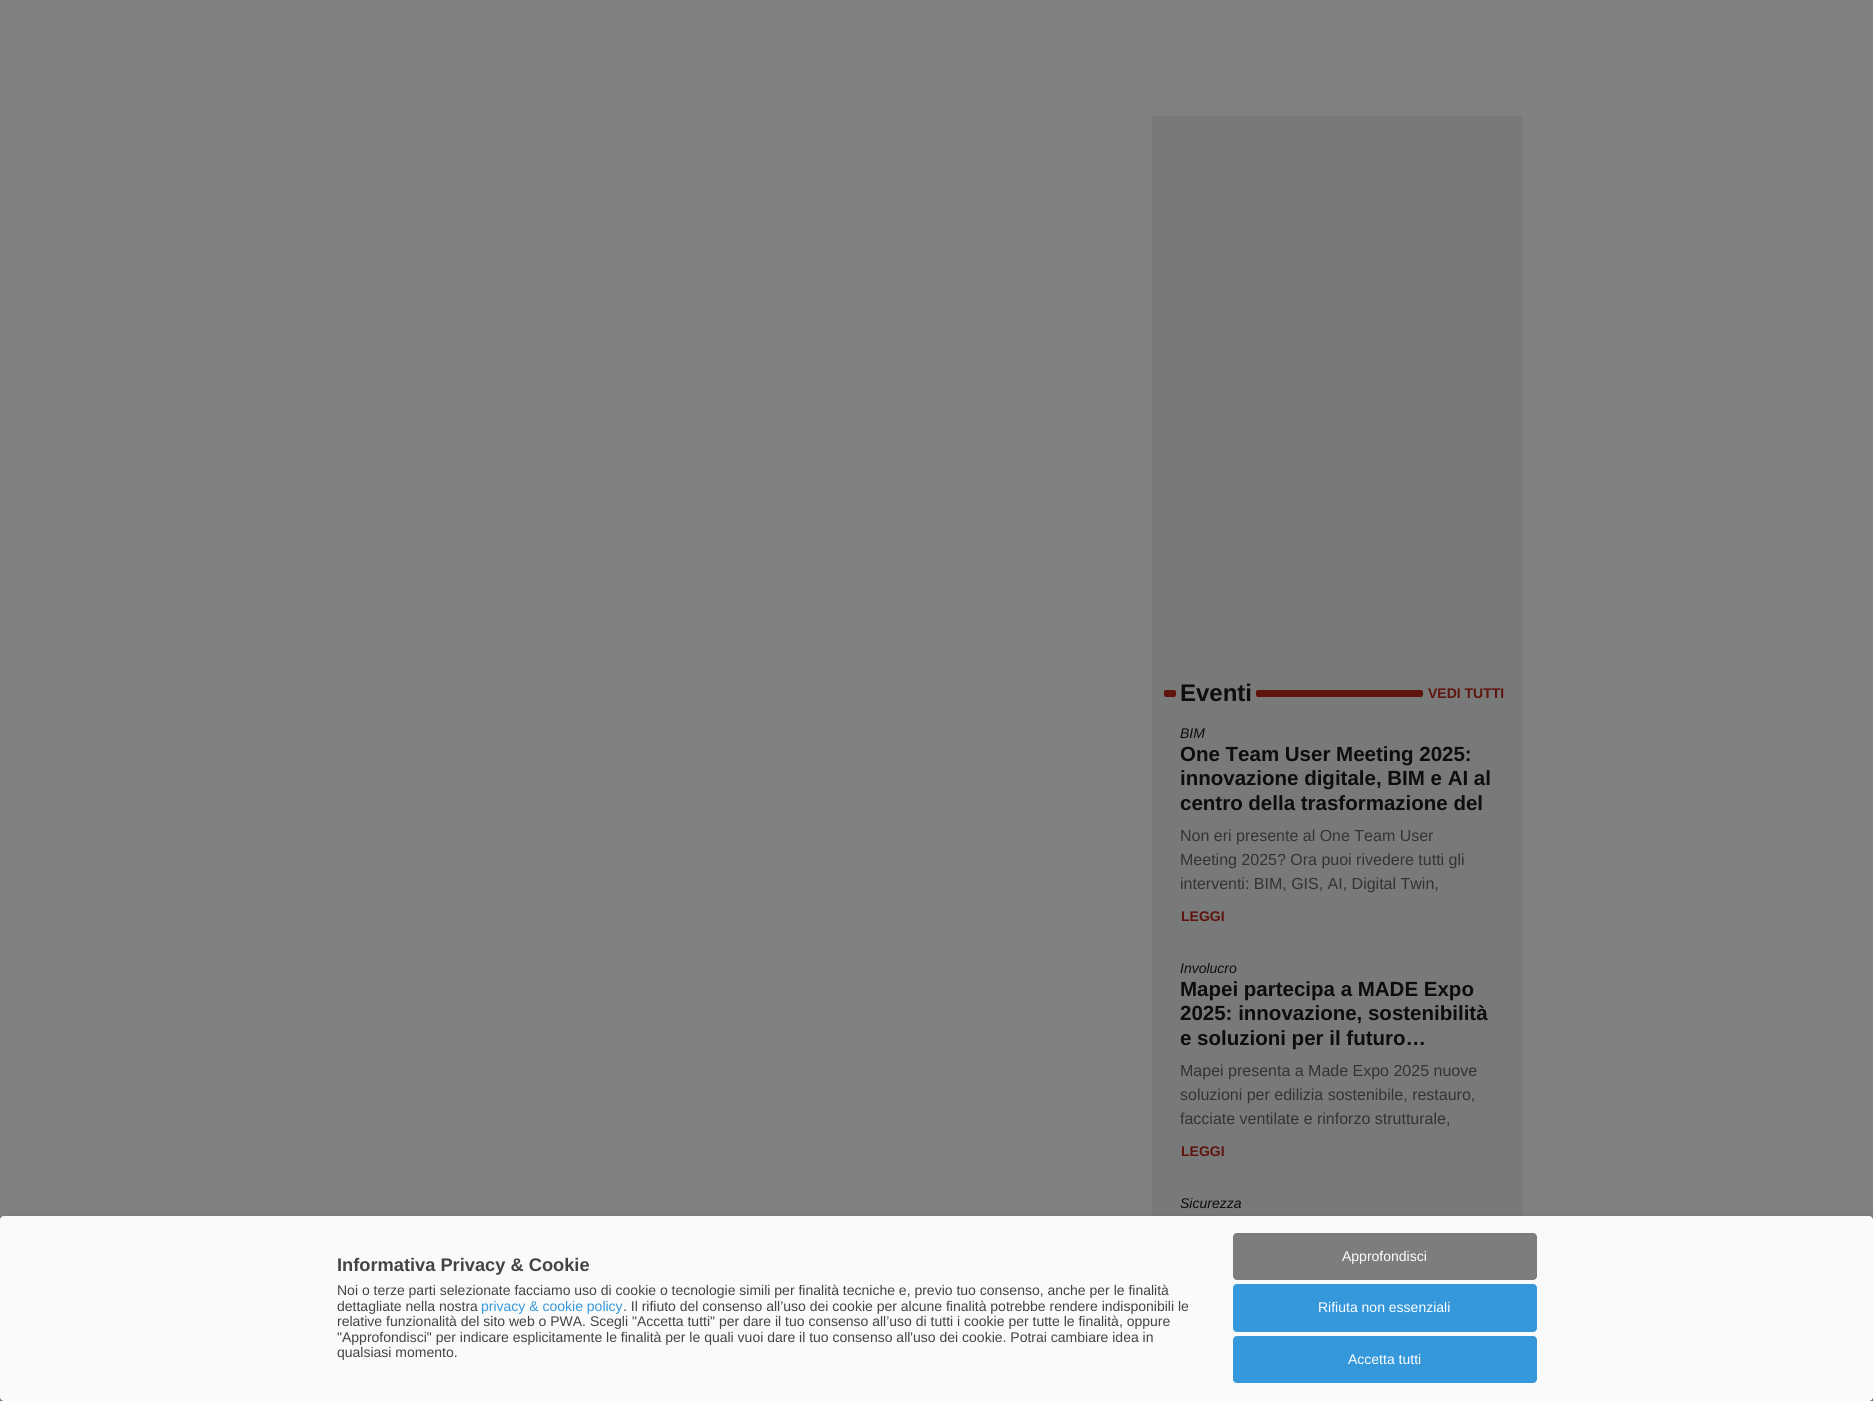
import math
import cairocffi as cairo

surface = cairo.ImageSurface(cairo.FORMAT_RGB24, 1873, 1401)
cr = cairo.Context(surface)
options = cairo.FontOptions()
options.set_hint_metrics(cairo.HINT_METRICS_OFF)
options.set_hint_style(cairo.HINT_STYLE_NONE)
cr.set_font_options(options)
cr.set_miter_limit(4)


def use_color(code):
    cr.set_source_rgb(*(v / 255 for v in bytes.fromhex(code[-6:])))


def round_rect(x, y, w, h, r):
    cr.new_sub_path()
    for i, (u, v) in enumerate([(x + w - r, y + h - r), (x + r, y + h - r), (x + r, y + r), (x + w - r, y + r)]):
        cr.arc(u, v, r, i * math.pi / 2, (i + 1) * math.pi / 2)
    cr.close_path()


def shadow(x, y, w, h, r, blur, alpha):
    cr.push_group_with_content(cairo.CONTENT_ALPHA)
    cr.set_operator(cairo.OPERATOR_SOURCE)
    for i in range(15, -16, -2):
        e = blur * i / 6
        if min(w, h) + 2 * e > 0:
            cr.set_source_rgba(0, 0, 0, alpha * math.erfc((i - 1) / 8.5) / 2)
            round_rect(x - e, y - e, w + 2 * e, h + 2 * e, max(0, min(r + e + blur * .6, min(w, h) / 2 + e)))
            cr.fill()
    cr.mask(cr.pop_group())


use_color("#808080")
cr.paint()
use_color("#787979")
cr.rectangle(1152, 116, 370, 1100)
cr.fill()
use_color("#5f140e")
round_rect(1164, 690, 12, 7, 2)
cr.fill()
cr.select_font_face("Liberation Sans", cairo.FONT_SLANT_NORMAL, cairo.FONT_WEIGHT_BOLD)
cr.set_font_size(24)
use_color("#0d0c0e")
cr.move_to(1180, 701)
cr.show_text("Eventi")
use_color("#5f140e")
round_rect(1256, 690, 167, 7, 2)
cr.fill()
cr.set_font_size(14)
cr.move_to(1428, 698)
cr.show_text("VEDI TUTTI")
cr.select_font_face("Liberation Sans", cairo.FONT_SLANT_ITALIC)
use_color("#0d0c0e")
cr.move_to(1180, 738)
cr.show_text("BIM")
cr.select_font_face("Liberation Sans", cairo.FONT_SLANT_NORMAL, cairo.FONT_WEIGHT_BOLD)
cr.set_font_size(20.5)
cr.move_to(1180, 761)
cr.show_text("One Team User Meeting 2025:")
cr.move_to(1180, 785)
cr.show_text("innovazione digitale, BIM e AI al")
cr.move_to(1180, 810)
cr.show_text("centro della trasformazione del")
cr.select_font_face("Liberation Sans")
cr.set_font_size(16)
use_color("#333333")
cr.move_to(1180, 841)
cr.show_text("Non eri presente al One Team User")
cr.move_to(1180, 865)
cr.show_text("Meeting 2025? Ora puoi rivedere tutti gli")
cr.move_to(1180, 889)
cr.show_text("interventi: BIM, GIS, AI, Digital Twin,")
cr.select_font_face("Liberation Sans", cairo.FONT_SLANT_NORMAL, cairo.FONT_WEIGHT_BOLD)
cr.set_font_size(14)
use_color("#5f140e")
cr.move_to(1181, 921)
cr.show_text("LEGGI")
cr.select_font_face("Liberation Sans", cairo.FONT_SLANT_ITALIC)
use_color("#0d0c0e")
cr.move_to(1180, 973)
cr.show_text("Involucro")
cr.select_font_face("Liberation Sans", cairo.FONT_SLANT_NORMAL, cairo.FONT_WEIGHT_BOLD)
cr.set_font_size(20.5)
cr.move_to(1180, 996)
cr.show_text("Mapei partecipa a MADE Expo")
cr.move_to(1180, 1020)
cr.show_text("2025: innovazione, sostenibilità")
cr.move_to(1180, 1045)
cr.show_text("e soluzioni per il futuro…")
cr.select_font_face("Liberation Sans")
cr.set_font_size(16)
use_color("#333333")
cr.move_to(1180, 1076)
cr.show_text("Mapei presenta a Made Expo 2025 nuove")
cr.move_to(1180, 1100)
cr.show_text("soluzioni per edilizia sostenibile, restauro,")
cr.move_to(1180, 1124)
cr.show_text("facciate ventilate e rinforzo strutturale,")
cr.select_font_face("Liberation Sans", cairo.FONT_SLANT_NORMAL, cairo.FONT_WEIGHT_BOLD)
cr.set_font_size(14)
use_color("#5f140e")
cr.move_to(1181, 1156)
cr.show_text("LEGGI")
cr.select_font_face("Liberation Sans", cairo.FONT_SLANT_ITALIC)
use_color("#0d0c0e")
cr.move_to(1180, 1208)
cr.show_text("Sicurezza")
use_color("#000000")
shadow(5, 1221, 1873, 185, 4, 5, 0.19)
shadow(0, 1220, 1873, 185, 4, 3, 0.2)
use_color("#fafafa")
round_rect(0, 1216, 1873, 185, 4)
cr.fill()
cr.select_font_face("Liberation Sans", cairo.FONT_SLANT_NORMAL, cairo.FONT_WEIGHT_BOLD)
cr.set_font_size(18.25)
use_color("#444444")
cr.move_to(337, 1271)
cr.show_text("Informativa Privacy & Cookie")
cr.select_font_face("Liberation Sans")
cr.set_font_size(14)
cr.move_to(337, 1295)
cr.show_text("Noi o terze parti selezionate facciamo uso di cookie o tecnologie simili per finalità tecniche e, previo tuo consenso, anche per le finalità")
cr.move_to(337, 1311)
cr.show_text("dettagliate nella nostra")
use_color("#3498db")
cr.move_to(481, 1311)
cr.show_text("privacy & cookie policy")
use_color("#444444")
cr.move_to(623, 1311)
cr.show_text(". Il rifiuto del consenso all’uso dei cookie per alcune finalità potrebbe rendere indisponibili le")
cr.move_to(337, 1326)
cr.show_text("relative funzionalità del sito web o PWA. Scegli \"Accetta tutti\" per dare il tuo consenso all’uso di tutti i cookie per tutte le finalità, oppure")
cr.move_to(337, 1342)
cr.show_text("\"Approfondisci\" per indicare esplicitamente le finalità per le quali vuoi dare il tuo consenso all'uso dei cookie. Potrai cambiare idea in")
cr.move_to(337, 1357)
cr.show_text("qualsiasi momento.")
use_color("#7d7d7d")
round_rect(1233, 1233, 304, 47, 4)
cr.fill()
use_color("#ffffff")
cr.move_to(1342, 1261)
cr.show_text("Approfondisci")
use_color("#3498db")
round_rect(1233, 1284, 304, 48, 4)
cr.fill()
use_color("#ffffff")
cr.move_to(1318, 1312)
cr.show_text("Rifiuta non essenziali")
use_color("#3498db")
round_rect(1233, 1336, 304, 47, 4)
cr.fill()
use_color("#ffffff")
cr.move_to(1348, 1364)
cr.show_text("Accetta tutti")
surface.write_to_png("result.png")
